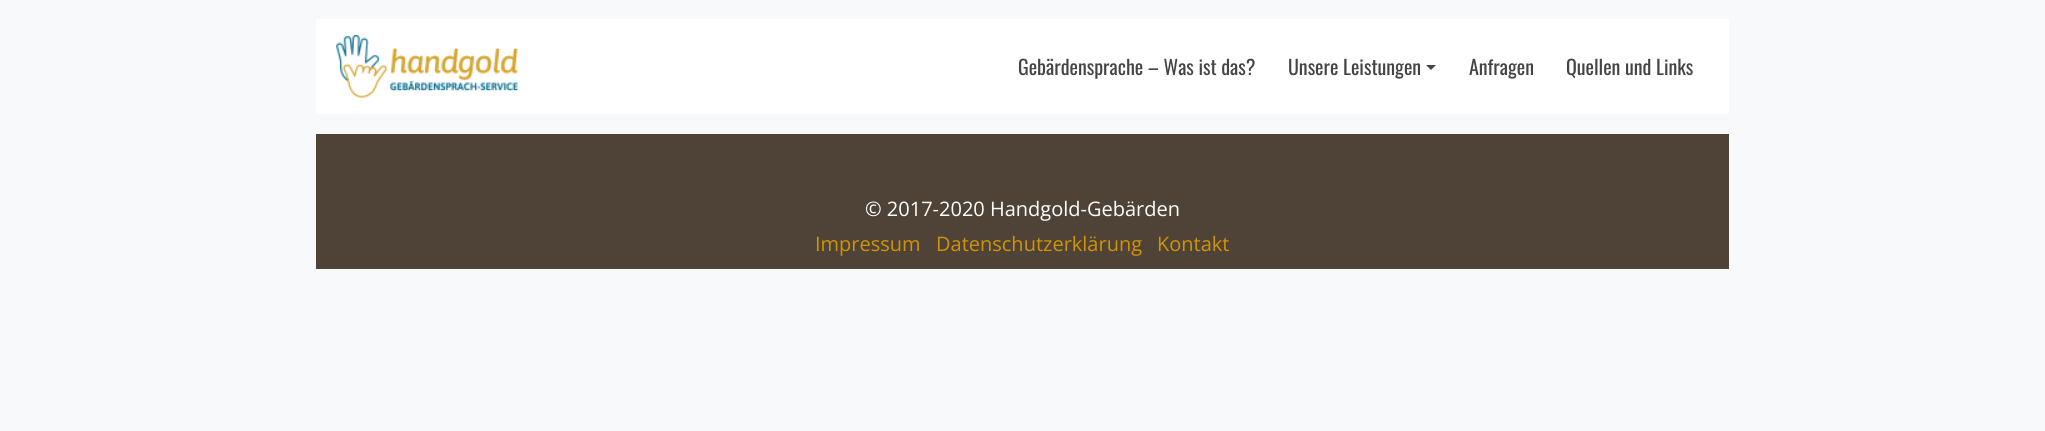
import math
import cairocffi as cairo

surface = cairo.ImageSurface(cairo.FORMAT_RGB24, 2045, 431)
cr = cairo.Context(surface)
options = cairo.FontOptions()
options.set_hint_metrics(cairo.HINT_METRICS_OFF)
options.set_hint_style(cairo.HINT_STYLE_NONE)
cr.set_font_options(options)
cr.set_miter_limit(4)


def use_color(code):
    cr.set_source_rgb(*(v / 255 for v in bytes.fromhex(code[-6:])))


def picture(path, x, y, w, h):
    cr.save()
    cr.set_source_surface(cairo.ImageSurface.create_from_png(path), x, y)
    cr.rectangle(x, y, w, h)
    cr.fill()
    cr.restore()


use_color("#f8f9fa")
cr.paint()
use_color("#ffffff")
cr.rectangle(316, 19, 1413, 95)
cr.fill()
picture("img1.png", 336, 35, 183, 63)
cr.select_font_face("Oswald")
cr.set_font_size(20)
use_color("#424544")
cr.move_to(1018, 75)
cr.show_text("Gebärdensprache – Was ist das?")
cr.move_to(1288, 75)
cr.show_text("Unsere Leistungen")
cr.new_path()
cr.move_to(1426, 65)
cr.line_to(1436, 65)
cr.line_to(1431, 70)
cr.close_path()
cr.fill()
cr.move_to(1469, 75)
cr.show_text("Anfragen")
cr.move_to(1566, 75)
cr.show_text("Quellen und Links")
use_color("#4e4336")
cr.rectangle(316, 134, 1413, 135)
cr.fill()
cr.select_font_face("Open Sans")
use_color("#ffffff")
cr.move_to(865, 216)
cr.show_text("© 2017-2020 Handgold-Gebärden")
use_color("#d19307")
cr.move_to(815, 251)
cr.show_text("Impressum")
cr.move_to(936, 251)
cr.show_text("Datenschutzerklärung")
cr.move_to(1157, 251)
cr.show_text("Kontakt")
surface.write_to_png("result.png")
